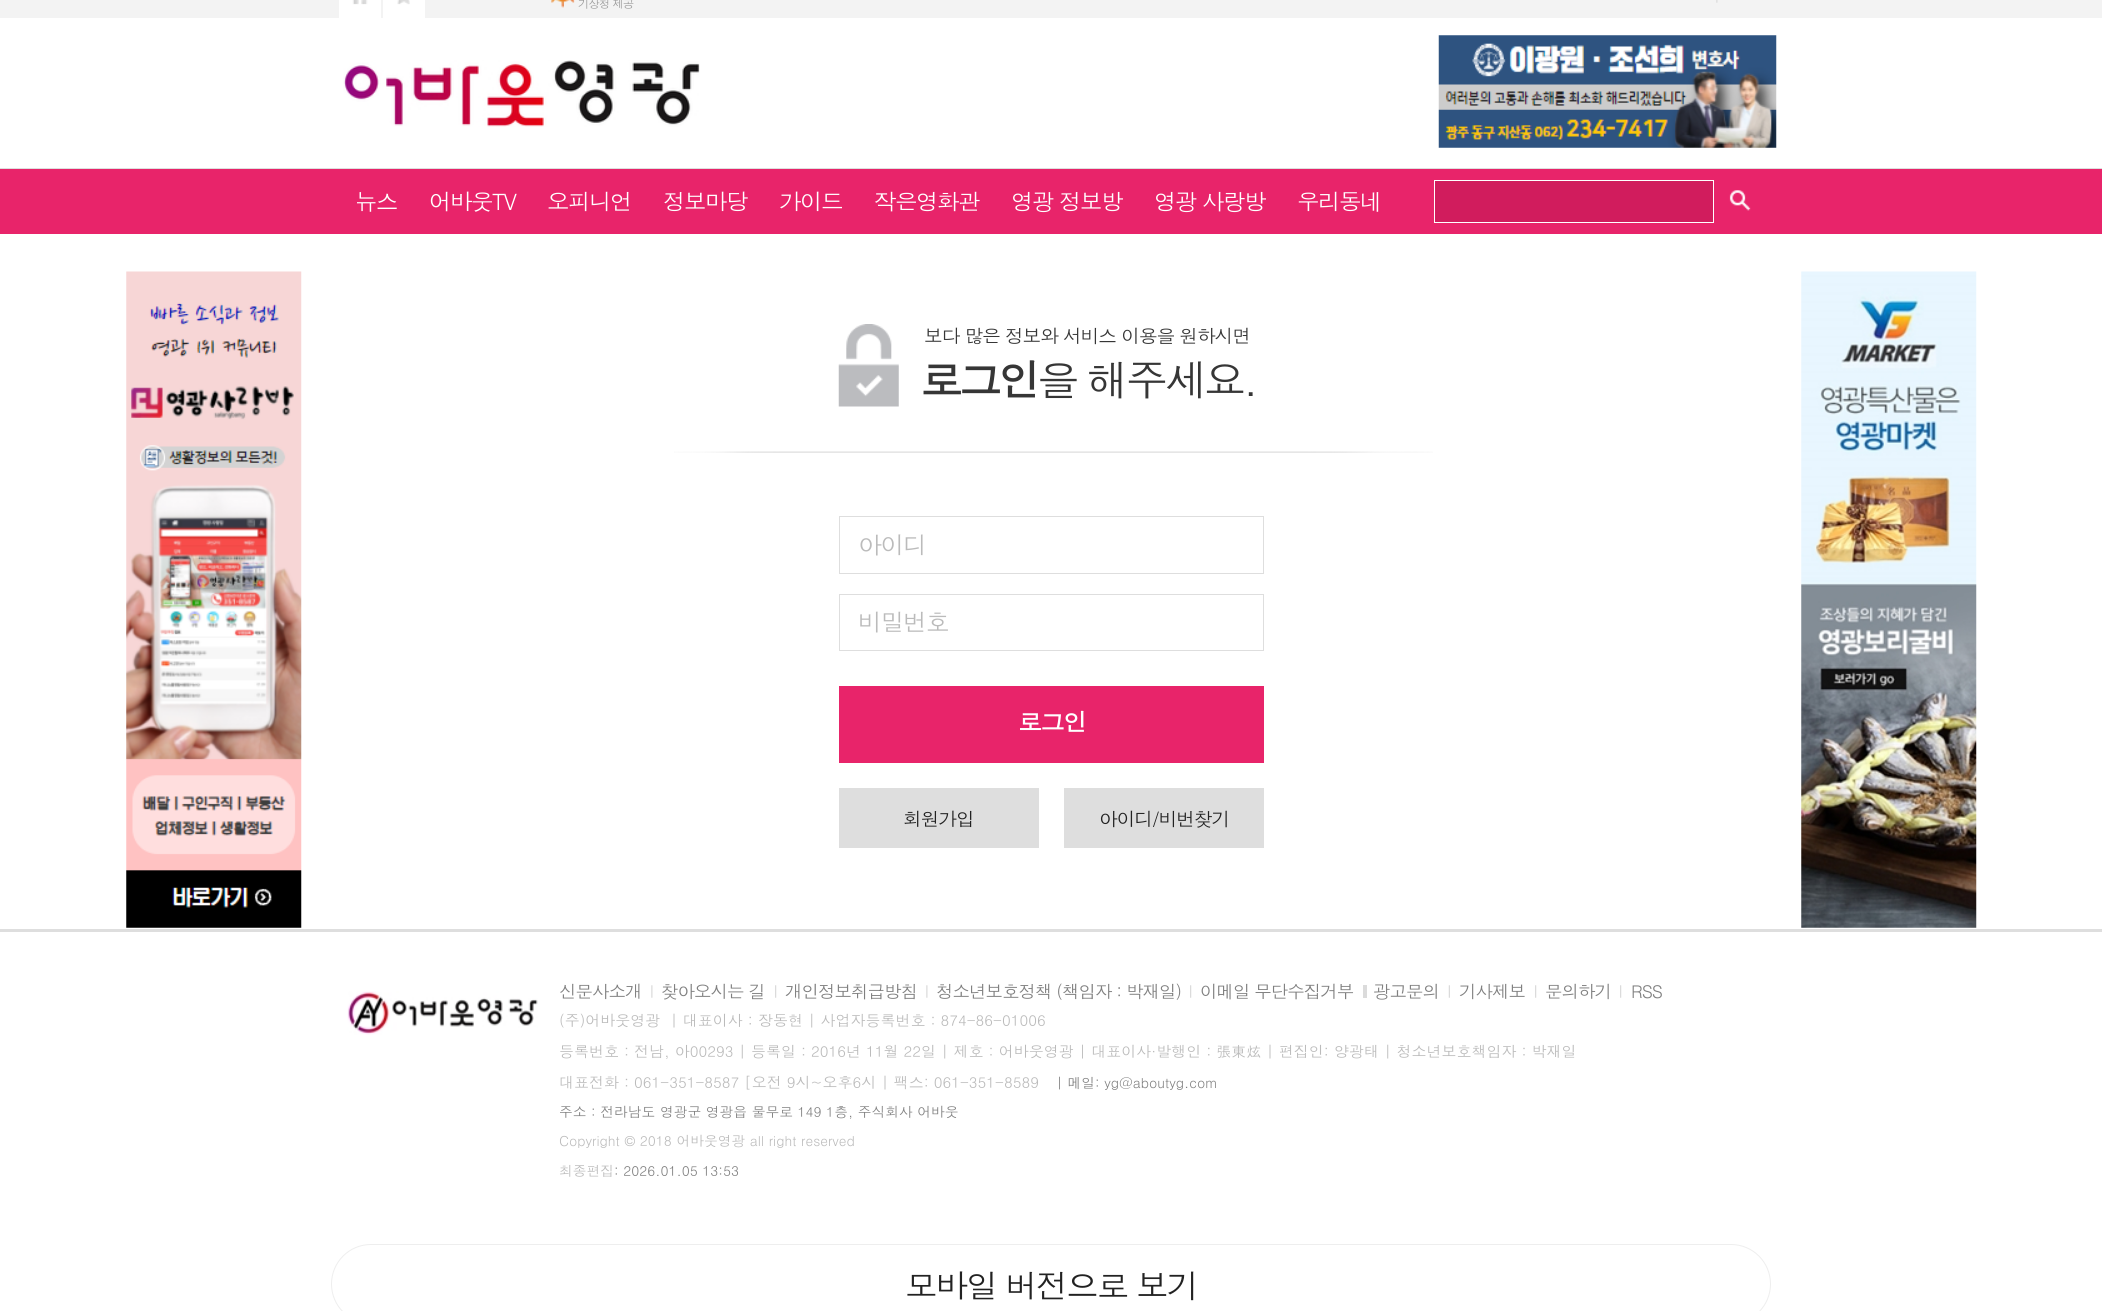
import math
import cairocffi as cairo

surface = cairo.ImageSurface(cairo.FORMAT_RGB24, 2102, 1311)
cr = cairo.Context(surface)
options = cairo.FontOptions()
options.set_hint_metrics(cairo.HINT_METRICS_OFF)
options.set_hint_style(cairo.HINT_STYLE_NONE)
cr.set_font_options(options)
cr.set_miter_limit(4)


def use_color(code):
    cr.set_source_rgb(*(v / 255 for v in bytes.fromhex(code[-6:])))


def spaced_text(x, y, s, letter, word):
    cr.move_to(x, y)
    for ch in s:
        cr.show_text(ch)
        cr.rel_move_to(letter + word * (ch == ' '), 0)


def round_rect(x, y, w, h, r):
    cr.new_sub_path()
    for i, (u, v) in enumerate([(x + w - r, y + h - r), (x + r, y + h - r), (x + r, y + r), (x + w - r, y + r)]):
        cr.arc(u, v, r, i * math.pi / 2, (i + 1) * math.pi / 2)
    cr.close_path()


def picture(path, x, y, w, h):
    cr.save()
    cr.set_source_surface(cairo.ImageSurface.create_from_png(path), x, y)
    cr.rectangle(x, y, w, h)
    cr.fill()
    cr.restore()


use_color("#ffffff")
cr.paint()
use_color("#f3f3f3")
cr.rectangle(0, 0, 2102, 18)
cr.fill()
use_color("#ffffff")
cr.rectangle(339, 0, 42, 18)
cr.fill()
picture("img1.png", 352, 0, 16, 5)
cr.rectangle(383, 0, 42, 18)
cr.fill()
picture("img2.png", 397, 0, 13, 5)
picture("img3.png", 551, 0, 24, 8)
cr.select_font_face("Dotum")
cr.set_font_size(11.25)
use_color("#999999")
spaced_text(578, 8, "기상청 제공", -0.75, 0)
picture("img4.png", 1716, 0, 2, 3)
picture("img5.png", 343, 60, 357, 67)
picture("img6.png", 1438, 35, 339, 113)
use_color("#e8246a")
cr.rectangle(0, 169, 2102, 65)
cr.fill()
use_color("#dedede")
cr.rectangle(0, 168, 2102, 1)
cr.fill()
cr.set_font_size(22.5)
use_color("#ffffff")
spaced_text(355, 210, "뉴스", -1.5, 0)
spaced_text(429, 210, "어바웃TV", -1.5, 0)
spaced_text(547, 210, "오피니언", -1.5, 0)
spaced_text(663, 210, "정보마당", -1.5, 0)
spaced_text(779, 210, "가이드", -1.5, 0)
spaced_text(874, 210, "작은영화관", -1.5, 0)
spaced_text(1011, 210, "영광 정보방", -1.5, 0)
spaced_text(1154, 210, "영광 사랑방", -1.5, 0)
spaced_text(1297, 210, "우리동네", -1.5, 0)
use_color("#d11c5d")
cr.rectangle(1434.5, 180.5, 279, 42)
cr.fill_preserve()
use_color("#ffffff")
cr.set_line_width(1)
cr.stroke()
picture("img7.png", 1729, 190, 22, 21)
picture("img8.png", 126, 271, 176, 657)
picture("img9.png", 1801, 271, 176, 657)
picture("img10.png", 674, 451, 759, 2)
picture("img11.png", 838, 324, 61, 83)
cr.set_font_size(18.75)
use_color("#363636")
spaced_text(924, 343, "보다 많은 정보와 서비스 이용을 원하시면", -1.1, 0)
cr.select_font_face("Dotum", cairo.FONT_SLANT_NORMAL, cairo.FONT_WEIGHT_BOLD)
cr.set_font_size(42.5)
spaced_text(920, 396, "로그인", -3.5, 0)
cr.select_font_face("Dotum")
spaced_text(1037, 396, "을 해주세요.", -3.5, 0)
cr.rectangle(839.5, 516.5, 424, 57)
use_color("#dedede")
cr.stroke()
cr.set_font_size(24)
use_color("#bbbbbb")
spaced_text(858, 554, "아이디", -1.5, 0)
cr.rectangle(839.5, 594.5, 424, 56)
use_color("#dedede")
cr.stroke()
use_color("#bbbbbb")
spaced_text(858, 631, "비밀번호", -1.5, 0)
use_color("#e8246a")
cr.rectangle(839, 686, 425, 77)
cr.fill()
cr.select_font_face("Dotum", cairo.FONT_SLANT_NORMAL, cairo.FONT_WEIGHT_BOLD)
use_color("#ffffff")
spaced_text(1018, 731, "로그인", -1.5, 0)
use_color("#dedede")
cr.rectangle(839, 788, 200, 60)
cr.fill()
cr.select_font_face("Dotum")
cr.set_font_size(18.75)
use_color("#222222")
spaced_text(903, 826, "회원가입", -1.1, 0)
use_color("#dedede")
cr.rectangle(1064, 788, 200, 60)
cr.fill()
use_color("#222222")
spaced_text(1099, 826, "아이디/비번찾기", -1.1, 0)
use_color("#dedede")
cr.rectangle(0, 929, 2102, 3)
cr.fill()
picture("img12.png", 347, 991, 191, 44)
cr.set_font_size(17.5)
use_color("#808080")
spaced_text(559, 998, "신문사소개", -1, 0)
picture("img13.png", 651, 985, 2, 13)
spaced_text(661, 998, "찾아오시는 길", -1, 0)
picture("img14.png", 775, 985, 2, 13)
spaced_text(785, 998, "개인정보취급방침", -1, 0)
picture("img13.png", 926, 985, 2, 13)
spaced_text(936, 998, "청소년보호정책 (책임자 : 박재일)", -1, 0)
picture("img14.png", 1190, 985, 2, 13)
spaced_text(1200, 998, "이메일 무단수집거부", -1, 0)
use_color("#dbdbdb")
cr.rectangle(1363, 985, 4, 13)
cr.fill()
use_color("#808080")
spaced_text(1373, 998, "광고문의", -1, 0)
picture("img15.png", 1448, 985, 2, 13)
spaced_text(1459, 998, "기사제보", -1, 0)
picture("img14.png", 1535, 985, 2, 13)
spaced_text(1545, 998, "문의하기", -1, 0)
picture("img14.png", 1620, 985, 2, 13)
spaced_text(1631, 998, "RSS", -1, 0)
cr.set_font_size(15)
use_color("#bbbbbb")
cr.move_to(559, 1026)
cr.show_text("(주)어바웃영광  | 대표이사 : 장동현 | 사업자등록번호 : 874-86-01006")
cr.move_to(559, 1057)
cr.show_text("등록번호 : 전남, 아00293 | 등록일 : 2016년 11월 22일 | 제호 : 어바웃영광 | 대표이사·발행인 : 張東炫 | 편집인: 양광태 | 청소년보호책임자 : 박재일")
cr.move_to(559, 1088)
cr.show_text("대표전화 : 061-351-8587 [오전 9시~오후6시 | 팩스: 061-351-8589")
cr.set_font_size(13.75)
use_color("#808080")
cr.move_to(1056, 1088)
cr.show_text("| 메일: yg@aboutyg.com")
cr.move_to(559, 1117)
cr.show_text("주소 : 전라남도 영광군 영광읍 물무로 149 1층, 주식회사 어바웃")
use_color("#bbbbbb")
cr.move_to(559, 1146)
cr.show_text("Copyright © 2018 어바웃영광 all right reserved")
cr.move_to(559, 1176)
cr.show_text("최종편집")
use_color("#808080")
cr.move_to(614, 1176)
cr.show_text(": 2026.01.05 13:53")
round_rect(331.5, 1244.5, 1439, 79, 39.5)
use_color("#eeeeee")
cr.stroke()
cr.set_font_size(32.5)
use_color("#222222")
spaced_text(905, 1298, "모바일 버전으로 보기", -2, 0)
surface.write_to_png("result.png")
